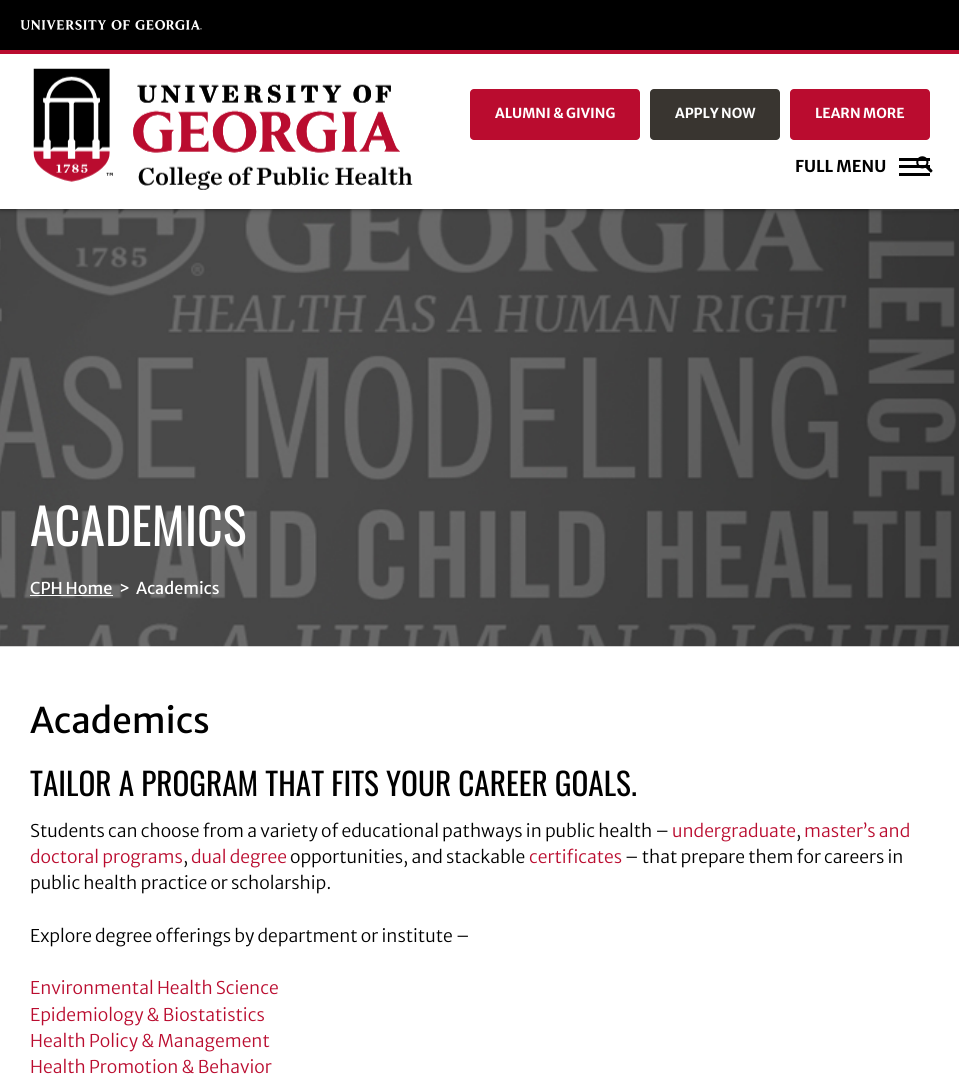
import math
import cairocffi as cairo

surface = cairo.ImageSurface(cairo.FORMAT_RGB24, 959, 1080)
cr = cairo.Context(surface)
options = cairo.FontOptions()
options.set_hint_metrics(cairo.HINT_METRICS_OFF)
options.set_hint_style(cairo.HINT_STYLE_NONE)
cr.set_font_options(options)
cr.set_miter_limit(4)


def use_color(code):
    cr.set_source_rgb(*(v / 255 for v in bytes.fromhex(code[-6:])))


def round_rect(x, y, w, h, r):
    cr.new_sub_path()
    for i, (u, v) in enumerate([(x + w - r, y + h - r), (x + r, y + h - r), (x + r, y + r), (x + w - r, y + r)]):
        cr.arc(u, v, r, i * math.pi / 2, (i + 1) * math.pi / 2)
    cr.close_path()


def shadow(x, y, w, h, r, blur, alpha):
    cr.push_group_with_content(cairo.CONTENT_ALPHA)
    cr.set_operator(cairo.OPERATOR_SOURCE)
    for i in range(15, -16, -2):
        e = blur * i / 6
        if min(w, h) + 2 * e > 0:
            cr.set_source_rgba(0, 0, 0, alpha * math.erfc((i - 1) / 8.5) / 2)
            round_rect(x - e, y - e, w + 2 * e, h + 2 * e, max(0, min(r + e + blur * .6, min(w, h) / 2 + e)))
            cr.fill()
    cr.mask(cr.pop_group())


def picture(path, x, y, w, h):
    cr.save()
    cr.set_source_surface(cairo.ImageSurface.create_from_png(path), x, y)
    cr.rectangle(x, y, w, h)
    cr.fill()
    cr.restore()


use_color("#ffffff")
cr.paint()
picture("img4.png", 0, 209, 959, 438)
use_color("#000000")
shadow(0, 0, 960, 209, 0, 2.5, 0.7)
use_color("#ffffff")
cr.rectangle(0, 54, 959, 155)
cr.fill()
use_color("#000000")
cr.rectangle(0, 0, 959, 50)
cr.fill()
use_color("#ba0c2f")
cr.rectangle(0, 50, 959, 4)
cr.fill()
picture("img1.png", 20, 20, 182, 10)
picture("img2.png", 33, 68, 380, 122)
round_rect(470, 89, 170, 51, 4)
cr.fill()
cr.select_font_face("Merriweather Sans", cairo.FONT_SLANT_NORMAL, cairo.FONT_WEIGHT_BOLD)
cr.set_font_size(13.75)
use_color("#ffffff")
cr.move_to(495, 118)
cr.show_text("ALUMNI & GIVING")
use_color("#393530")
round_rect(650, 89, 130, 51, 4)
cr.fill()
use_color("#ffffff")
cr.move_to(675, 118)
cr.show_text("APPLY NOW")
use_color("#ba0c2f")
round_rect(790, 89, 140, 51, 4)
cr.fill()
use_color("#ffffff")
cr.move_to(815, 118)
cr.show_text("LEARN MORE")
use_color("#000000")
cr.rectangle(899, 165, 31, 3)
cr.fill()
cr.rectangle(899, 158, 31, 3)
cr.fill()
picture("img3.png", 916, 156, 17, 17)
cr.set_font_size(16.25)
cr.move_to(795, 172)
cr.show_text("FULL MENU")
cr.rectangle(899, 173, 31, 3)
cr.fill()
cr.select_font_face("Oswald")
cr.set_font_size(50)
use_color("#ffffff")
cr.move_to(30, 546)
cr.show_text("ACADEMICS")
cr.select_font_face("Merriweather Sans")
cr.set_font_size(16.25)
cr.move_to(30, 594)
cr.show_text("CPH Home")
cr.rectangle(30, 595, 83, 1)
cr.fill()
cr.move_to(119, 594)
cr.show_text(">")
cr.move_to(136, 594)
cr.show_text("Academics")
cr.set_font_size(35)
use_color("#000000")
cr.move_to(30, 733)
cr.show_text("Academics")
cr.select_font_face("Oswald")
cr.set_font_size(31.25)
cr.move_to(30, 796)
cr.show_text("TAILOR A PROGRAM THAT FITS YOUR CAREER GOALS.")
cr.select_font_face("Merriweather Sans Light")
cr.set_font_size(17.5)
cr.move_to(30, 837)
cr.show_text("Students can choose from a variety of educational pathways in public health –")
use_color("#ba0c2f")
cr.move_to(672, 837)
cr.show_text("undergraduate")
use_color("#000000")
cr.move_to(796, 837)
cr.show_text(",")
use_color("#ba0c2f")
cr.move_to(804, 837)
cr.show_text("master’s and")
cr.move_to(30, 863)
cr.show_text("doctoral programs")
use_color("#000000")
cr.move_to(183, 863)
cr.show_text(",")
use_color("#ba0c2f")
cr.move_to(191, 863)
cr.show_text("dual degree")
use_color("#000000")
cr.move_to(290, 863)
cr.show_text("opportunities, and stackable")
use_color("#ba0c2f")
cr.move_to(529, 863)
cr.show_text("certificates")
use_color("#000000")
cr.move_to(625, 863)
cr.show_text("– that prepare them for careers in")
cr.move_to(30, 889)
cr.show_text("public health practice or scholarship.")
cr.move_to(30, 942)
cr.show_text("Explore degree offerings by department or institute –")
use_color("#ba0c2f")
cr.move_to(30, 994)
cr.show_text("Environmental Health Science")
cr.move_to(30, 1021)
cr.show_text("Epidemiology & Biostatistics")
cr.move_to(30, 1047)
cr.show_text("Health Policy & Management")
cr.move_to(30, 1073)
cr.show_text("Health Promotion & Behavior")
surface.write_to_png("result.png")
